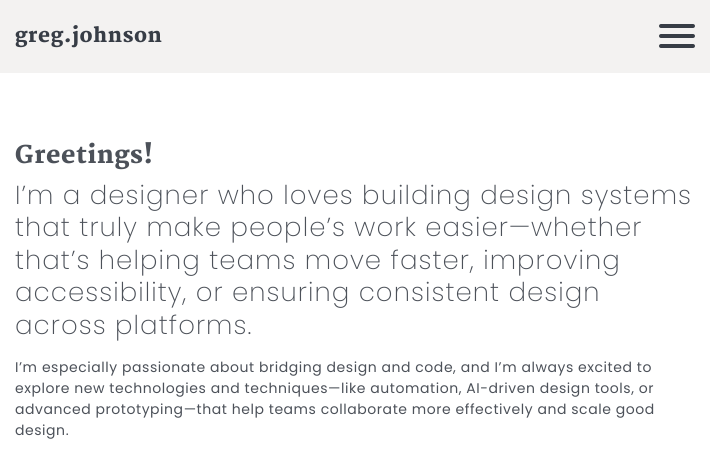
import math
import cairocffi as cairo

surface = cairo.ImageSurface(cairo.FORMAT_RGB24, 710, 456)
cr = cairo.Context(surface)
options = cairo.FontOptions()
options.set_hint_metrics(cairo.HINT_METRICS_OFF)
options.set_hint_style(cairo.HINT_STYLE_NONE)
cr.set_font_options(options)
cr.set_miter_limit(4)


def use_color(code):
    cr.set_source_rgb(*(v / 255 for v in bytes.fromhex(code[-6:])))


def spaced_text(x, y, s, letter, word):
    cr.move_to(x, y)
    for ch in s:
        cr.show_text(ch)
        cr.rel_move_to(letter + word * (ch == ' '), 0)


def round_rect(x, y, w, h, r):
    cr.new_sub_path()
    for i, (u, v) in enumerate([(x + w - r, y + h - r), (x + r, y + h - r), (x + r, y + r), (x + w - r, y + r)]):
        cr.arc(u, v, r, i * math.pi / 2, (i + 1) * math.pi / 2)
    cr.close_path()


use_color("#ffffff")
cr.paint()
use_color("#f3f2f1")
cr.rectangle(0, 0, 710, 73)
cr.fill()
cr.select_font_face("Martel Black")
cr.set_font_size(20)
use_color("#373d46")
spaced_text(15, 42, "greg.johnson", 0.6, 0)
round_rect(659, 24, 36, 4, 2)
cr.fill()
round_rect(659, 34, 36, 4, 2)
cr.fill()
round_rect(659, 44, 36, 4, 2)
cr.fill()
cr.set_font_size(24)
use_color("#4c5159")
spaced_text(15, 163, "Greetings!", 0.55, 0)
cr.select_font_face("Poppins ExtraLight")
cr.set_font_size(26)
spaced_text(15, 204, "I’m a designer who loves building design systems", 1.05, 0)
spaced_text(15, 236, "that truly make people’s work easier—whether", 1.05, 0)
spaced_text(15, 269, "that’s helping teams move faster, improving", 1.05, 0)
spaced_text(15, 301, "accessibility, or ensuring consistent design", 1.05, 0)
spaced_text(15, 334, "across platforms.", 1.05, 0)
cr.select_font_face("Poppins")
cr.set_font_size(14)
spaced_text(15, 372, "I’m especially passionate about bridging design and code, and I’m always excited to", 0.55, 0)
spaced_text(15, 393, "explore new technologies and techniques—like automation, AI-driven design tools, or", 0.55, 0)
spaced_text(15, 414, "advanced prototyping—that help teams collaborate more effectively and scale good", 0.55, 0)
spaced_text(15, 435, "design.", 0.55, 0)
surface.write_to_png("result.png")
